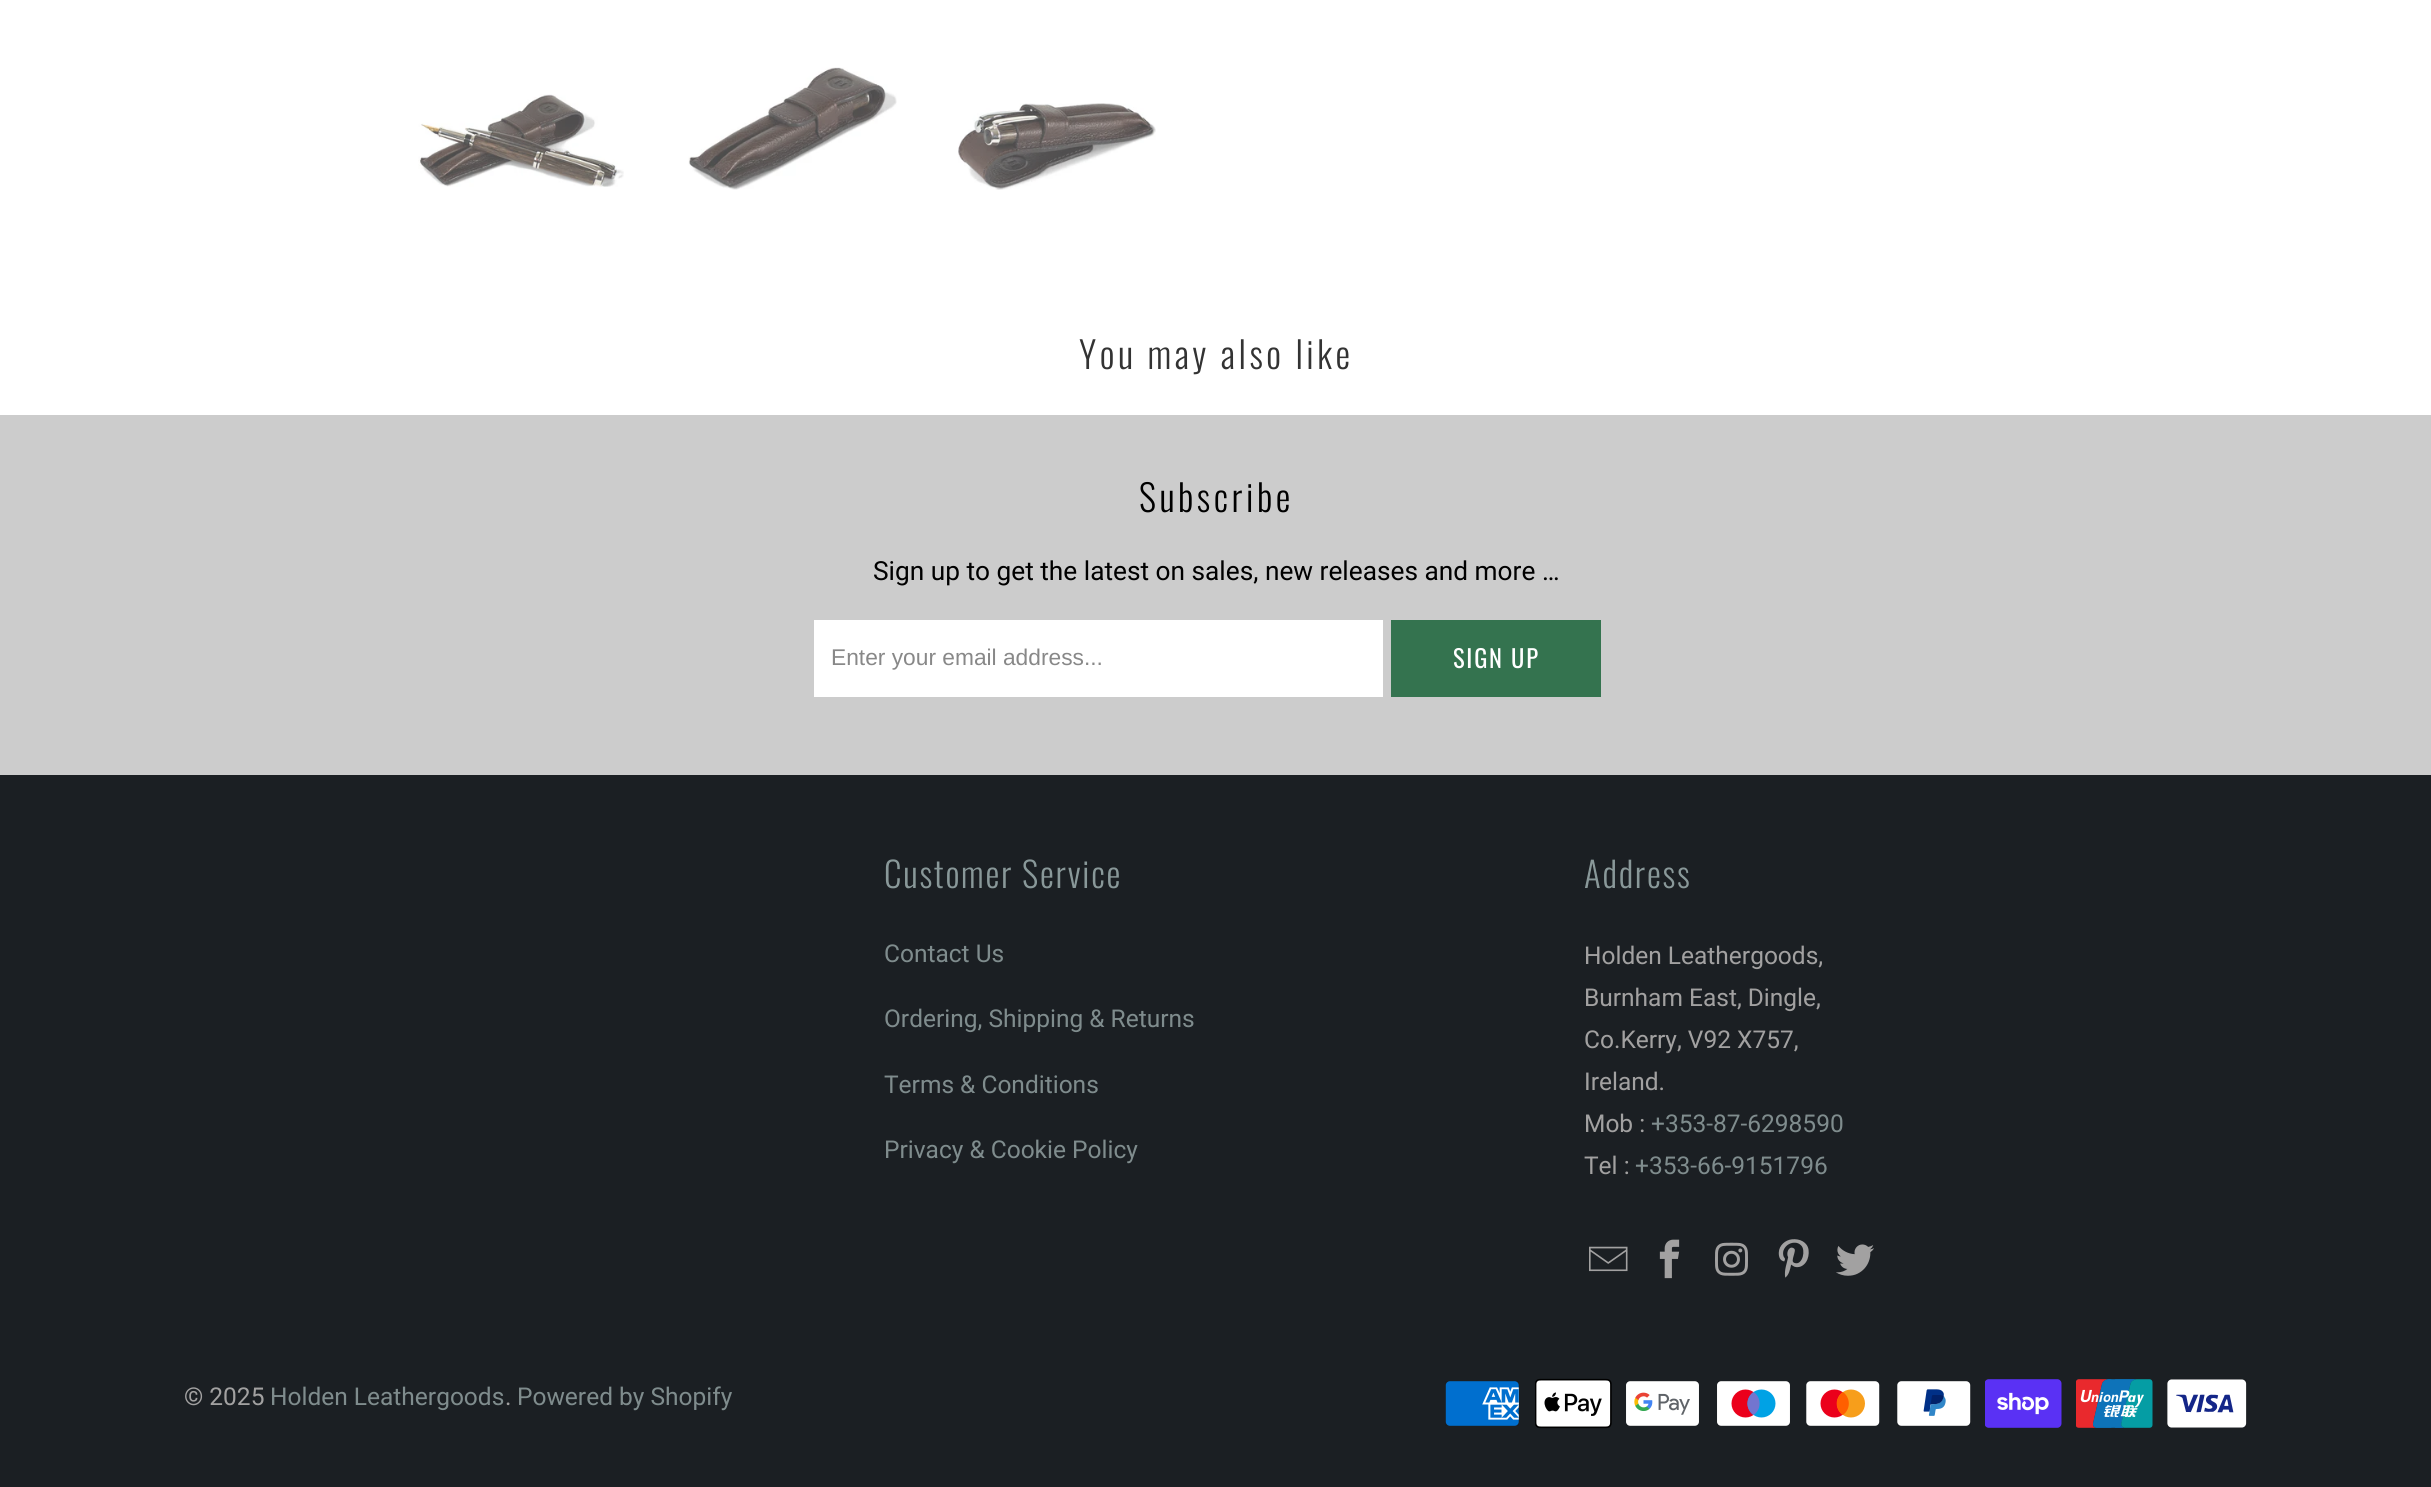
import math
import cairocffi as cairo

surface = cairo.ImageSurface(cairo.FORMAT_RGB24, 2431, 1487)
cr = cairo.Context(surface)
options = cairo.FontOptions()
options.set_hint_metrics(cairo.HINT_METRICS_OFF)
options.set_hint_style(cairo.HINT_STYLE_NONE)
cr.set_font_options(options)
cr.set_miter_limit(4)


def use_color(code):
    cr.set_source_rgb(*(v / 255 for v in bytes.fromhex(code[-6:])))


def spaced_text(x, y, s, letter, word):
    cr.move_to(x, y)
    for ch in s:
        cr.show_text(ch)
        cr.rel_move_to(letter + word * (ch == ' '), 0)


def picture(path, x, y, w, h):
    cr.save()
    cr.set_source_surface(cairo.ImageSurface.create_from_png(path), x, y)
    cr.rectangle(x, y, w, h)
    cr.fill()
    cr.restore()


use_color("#ffffff")
cr.paint()
picture("img1.png", 418, 94, 206, 93)
picture("img2.png", 688, 67, 209, 123)
picture("img3.png", 958, 103, 198, 87)
cr.select_font_face("Oswald Light")
cr.set_font_size(36.75)
use_color("#333333")
spaced_text(1079, 369, "You may also like", 3.5, 0)
use_color("#cccccc")
cr.rectangle(0, 415, 2431, 360)
cr.fill()
use_color("#000000")
spaced_text(1139, 512, "Subscribe", 3.5, 0)
cr.select_font_face("Roboto")
cr.set_font_size(26.25)
cr.move_to(873, 580)
cr.show_text("Sign up to get the latest on sales, new releases and more …")
use_color("#ffffff")
cr.rectangle(814, 620, 569, 77)
cr.fill()
cr.select_font_face("Liberation Sans")
cr.set_font_size(22.75)
use_color("#888888")
cr.move_to(831, 665)
cr.show_text("Enter your email address...")
use_color("#34734f")
cr.rectangle(1391, 620, 210, 77)
cr.fill()
cr.select_font_face("Oswald")
cr.set_font_size(24.5)
use_color("#ffffff")
spaced_text(1453, 668, "SIGN UP", 1.75, 0)
use_color("#1b1f23")
cr.rectangle(0, 775, 2431, 712)
cr.fill()
cr.select_font_face("Oswald Light")
cr.set_font_size(35)
use_color("#899899")
spaced_text(884, 888, "Customer Service", 1.75, 0)
cr.select_font_face("Roboto")
cr.set_font_size(24.5)
use_color("#7f8c8d")
cr.move_to(884, 962)
cr.show_text("Contact Us")
cr.move_to(884, 1027)
cr.show_text("Ordering, Shipping & Returns")
cr.move_to(884, 1093)
cr.show_text("Terms & Conditions")
cr.move_to(884, 1158)
cr.show_text("Privacy & Cookie Policy")
cr.select_font_face("Oswald Light")
cr.set_font_size(35)
use_color("#899899")
spaced_text(1584, 888, "Address", 1.75, 0)
cr.select_font_face("Roboto")
cr.set_font_size(24.5)
use_color("#a2a1a1")
cr.move_to(1584, 964)
cr.show_text("Holden Leathergoods,")
cr.move_to(1584, 1006)
cr.show_text("Burnham East, Dingle,")
cr.move_to(1584, 1048)
cr.show_text("Co.Kerry, V92 X757,")
cr.move_to(1584, 1090)
cr.show_text("Ireland.")
cr.move_to(1584, 1132)
cr.show_text("Mob :")
use_color("#7f8c8d")
cr.move_to(1651, 1132)
cr.show_text("+353-87-6298590")
use_color("#a2a1a1")
cr.move_to(1584, 1174)
cr.show_text("Tel :")
use_color("#7f8c8d")
cr.move_to(1635, 1174)
cr.show_text("+353-66-9151796")
picture("img4.png", 1589, 1246, 39, 26)
picture("img5.png", 1659, 1239, 21, 40)
picture("img6.png", 1715, 1242, 33, 34)
picture("img7.png", 1778, 1239, 31, 39)
picture("img8.png", 1836, 1244, 38, 32)
use_color("#a2a1a1")
cr.move_to(184, 1405)
cr.show_text("© 2025")
use_color("#7f8c8d")
cr.move_to(270, 1405)
cr.show_text("Holden Leathergoods")
use_color("#a2a1a1")
cr.move_to(505, 1405)
cr.show_text(".")
use_color("#7f8c8d")
cr.move_to(517, 1405)
cr.show_text("Powered by Shopify")
picture("img9.png", 1445, 1381, 74, 45)
picture("img10.png", 1535, 1378, 77, 51)
picture("img11.png", 1626, 1381, 73, 45)
picture("img12.png", 1717, 1381, 73, 45)
picture("img13.png", 1806, 1381, 74, 45)
picture("img14.png", 1897, 1381, 74, 45)
picture("img15.png", 1985, 1379, 77, 49)
picture("img16.png", 2076, 1379, 77, 49)
picture("img17.png", 2167, 1379, 80, 49)
surface.write_to_png("result.png")
